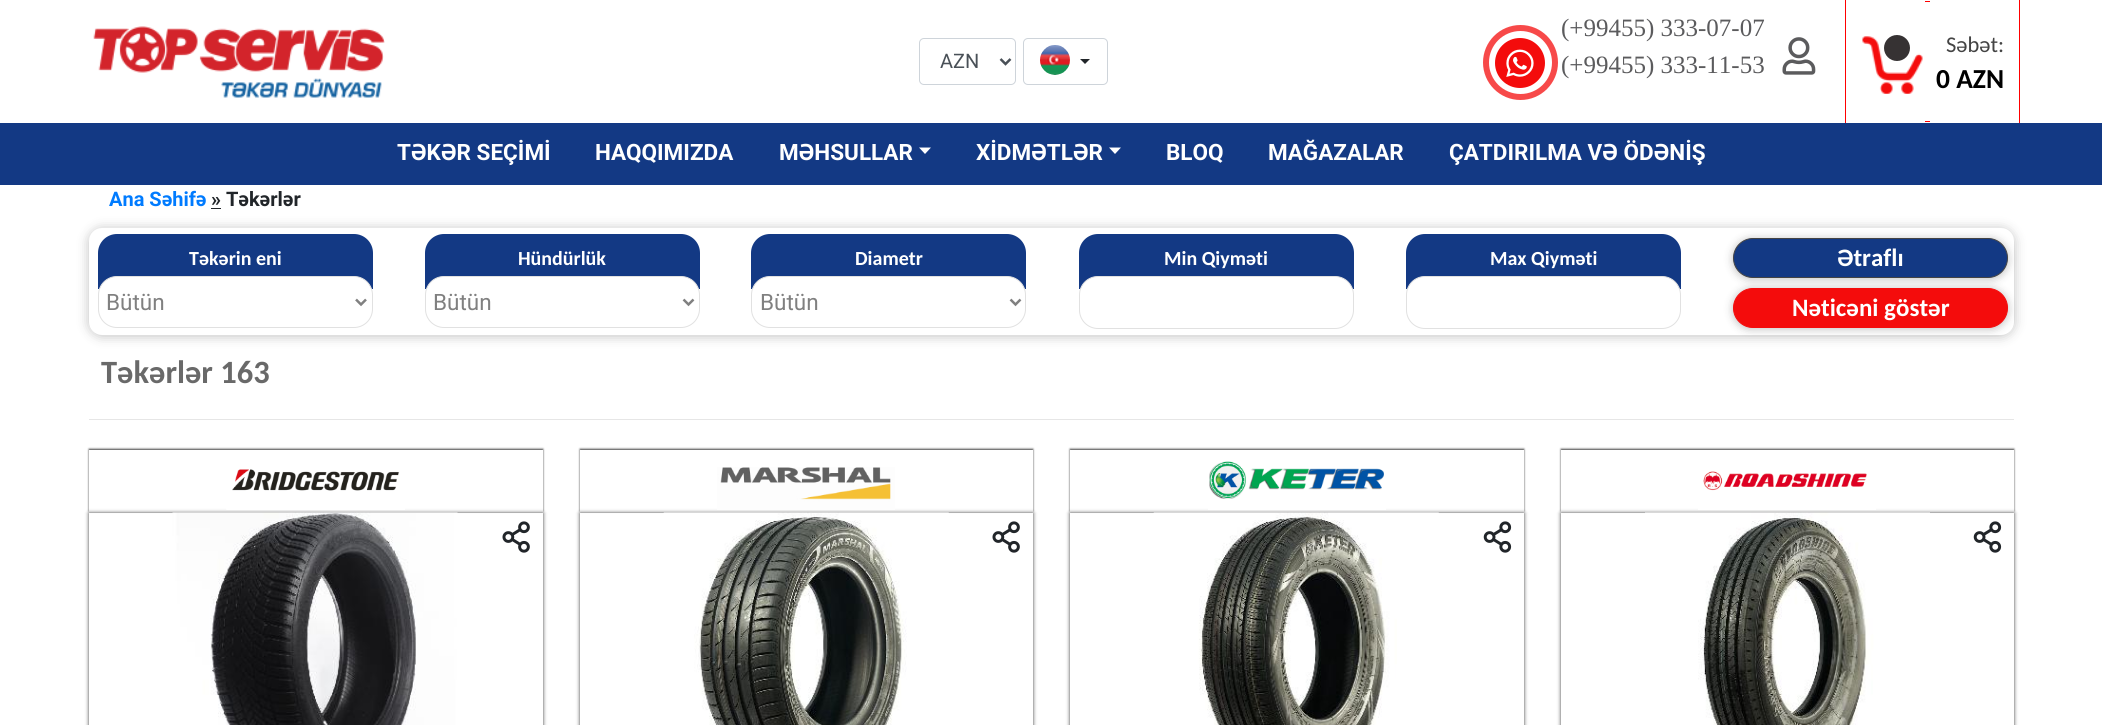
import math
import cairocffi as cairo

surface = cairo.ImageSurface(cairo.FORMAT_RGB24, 2102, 725)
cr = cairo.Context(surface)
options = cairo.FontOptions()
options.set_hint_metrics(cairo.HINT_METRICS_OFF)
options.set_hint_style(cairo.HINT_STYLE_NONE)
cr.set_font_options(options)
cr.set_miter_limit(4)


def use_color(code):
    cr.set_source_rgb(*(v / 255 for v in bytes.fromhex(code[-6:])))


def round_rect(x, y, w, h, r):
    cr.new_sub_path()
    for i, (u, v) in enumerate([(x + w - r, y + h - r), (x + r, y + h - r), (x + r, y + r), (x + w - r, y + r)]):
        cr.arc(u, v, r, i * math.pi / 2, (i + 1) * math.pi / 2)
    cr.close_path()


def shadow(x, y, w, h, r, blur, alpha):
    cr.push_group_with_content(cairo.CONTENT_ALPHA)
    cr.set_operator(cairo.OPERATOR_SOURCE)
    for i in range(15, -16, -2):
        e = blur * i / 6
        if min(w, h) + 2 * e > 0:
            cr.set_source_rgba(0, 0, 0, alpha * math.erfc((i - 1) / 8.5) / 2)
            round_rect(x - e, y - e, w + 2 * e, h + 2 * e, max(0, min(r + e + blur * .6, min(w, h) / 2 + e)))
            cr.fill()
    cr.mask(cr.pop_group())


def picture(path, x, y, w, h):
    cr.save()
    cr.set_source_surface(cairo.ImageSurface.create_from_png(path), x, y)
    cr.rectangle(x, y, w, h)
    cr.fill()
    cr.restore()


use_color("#ffffff")
cr.paint()
picture("img1.png", 93, 26, 292, 72)
round_rect(919.5, 38.5, 96, 46, 4.5)
use_color("#ced4da")
cr.set_line_width(1)
cr.stroke()
cr.new_path()
cr.move_to(1000.5, 59)
cr.line_to(1005.5, 64)
cr.line_to(1010.5, 59)
use_color("#495057")
cr.set_line_width(2.5)
cr.stroke()
cr.select_font_face("Roboto")
cr.set_font_size(20)
cr.move_to(940, 68)
cr.show_text("AZN")
round_rect(1023.5, 38.5, 84, 46, 4.5)
use_color("#ced4da")
cr.set_line_width(1)
cr.stroke()
picture("img2.png", 1040, 45, 30, 30)
use_color("#212529")
cr.new_path()
cr.move_to(1080, 59)
cr.line_to(1090, 59)
cr.line_to(1085, 64)
cr.close_path()
cr.fill()
use_color("#f40c0c")
cr.arc(1520, 63, 25, 0, 2 * math.pi)
cr.fill()
picture("img3.png", 1506, 49, 28, 28)
cr.arc(1520.5, 62.5, 34.5, 0, 2 * math.pi)
use_color("#f74949")
cr.set_line_width(6)
cr.stroke()
cr.select_font_face("Liberation Serif")
cr.set_font_size(25)
use_color("#5b5b5d")
cr.move_to(1561, 36)
cr.show_text("(+99455) 333-07-07")
cr.move_to(1561, 73)
cr.show_text("(+99455) 333-11-53")
picture("img4.png", 1782, 37, 34, 38)
use_color("#ff0000")
cr.rectangle(1845, 0, 1, 123)
cr.fill()
cr.rectangle(1925, 1, 5, 1)
cr.fill()
cr.rectangle(1925, 121, 5, 1)
cr.fill()
cr.rectangle(2019, 0, 1, 123)
cr.fill()
picture("img5.png", 1862, 36, 61, 58)
use_color("#363233")
cr.arc(1897, 48, 13, 0, 2 * math.pi)
cr.fill()
cr.select_font_face("Carlito")
cr.set_font_size(22.5)
use_color("#444444")
cr.move_to(1946, 52)
cr.show_text("Səbət:")
cr.select_font_face("Carlito", cairo.FONT_SLANT_NORMAL, cairo.FONT_WEIGHT_BOLD)
cr.set_font_size(27.5)
use_color("#000000")
cr.move_to(1936, 88)
cr.show_text("0 AZN")
use_color("#133984")
cr.rectangle(0, 123, 2102, 62)
cr.fill()
cr.select_font_face("Roboto", cairo.FONT_SLANT_NORMAL, cairo.FONT_WEIGHT_BOLD)
cr.set_font_size(22.5)
use_color("#ffffff")
cr.move_to(397, 160)
cr.show_text("TƏKƏR SEÇİMİ")
cr.move_to(595, 160)
cr.show_text("HAQQIMIZDA")
cr.move_to(779, 160)
cr.show_text("MƏHSULLAR")
cr.new_path()
cr.move_to(919, 147.5)
cr.line_to(931, 147.5)
cr.line_to(925, 154)
cr.close_path()
cr.fill()
cr.move_to(976, 160)
cr.show_text("XİDMƏTLƏR")
cr.new_path()
cr.move_to(1109, 147.5)
cr.line_to(1121, 147.5)
cr.line_to(1115, 154)
cr.close_path()
cr.fill()
cr.move_to(1166, 160)
cr.show_text("BLOQ")
cr.move_to(1268, 160)
cr.show_text("MAĞAZALAR")
cr.move_to(1449, 160)
cr.show_text("ÇATDIRILMA VƏ ÖDƏNİŞ")
cr.set_font_size(20)
use_color("#007bff")
cr.move_to(109, 206)
cr.show_text("Ana Səhifə")
use_color("#212529")
cr.move_to(211, 206)
cr.show_text("» Təkərlər")
cr.rectangle(211, 208, 10, 1)
cr.fill()
use_color("#000000")
shadow(89, 229, 1925, 107, 13, 6, 0.25)
use_color("#ffffff")
round_rect(89, 228, 1925, 107, 13)
cr.fill()
use_color("#133984")
cr.new_path()
cr.move_to(117, 234)
cr.line_to(354, 234)
cr.curve_to(364.5, 234, 373, 242.5, 373, 253)
cr.line_to(373, 289)
cr.line_to(98, 289)
cr.line_to(98, 253)
cr.curve_to(98, 242.5, 106.5, 234, 117, 234)
cr.close_path()
cr.fill()
cr.select_font_face("Carlito", cairo.FONT_SLANT_NORMAL, cairo.FONT_WEIGHT_BOLD)
use_color("#ffffff")
cr.move_to(189, 265)
cr.show_text("Təkərin eni")
round_rect(98.5, 276.5, 274, 51, 18.5)
cr.fill_preserve()
use_color("#e1e1e1")
cr.set_line_width(1)
cr.stroke()
cr.new_path()
cr.move_to(356, 299.5)
cr.line_to(361, 304.5)
cr.line_to(366, 299.5)
use_color("#808080")
cr.set_line_width(2.5)
cr.stroke()
cr.select_font_face("Roboto")
cr.set_font_size(22.5)
cr.move_to(106, 310)
cr.show_text("Bütün")
use_color("#133984")
cr.new_path()
cr.move_to(444, 234)
cr.line_to(681, 234)
cr.curve_to(691.5, 234, 700, 242.5, 700, 253)
cr.line_to(700, 289)
cr.line_to(425, 289)
cr.line_to(425, 253)
cr.curve_to(425, 242.5, 433.5, 234, 444, 234)
cr.close_path()
cr.fill()
cr.select_font_face("Carlito", cairo.FONT_SLANT_NORMAL, cairo.FONT_WEIGHT_BOLD)
cr.set_font_size(20)
use_color("#ffffff")
cr.move_to(518, 265)
cr.show_text("Hündürlük")
round_rect(425.5, 276.5, 274, 51, 18.5)
cr.fill_preserve()
use_color("#e1e1e1")
cr.set_line_width(1)
cr.stroke()
cr.new_path()
cr.move_to(683.5, 299.5)
cr.line_to(688.5, 304.5)
cr.line_to(693.5, 299.5)
use_color("#808080")
cr.set_line_width(2.5)
cr.stroke()
cr.select_font_face("Roboto")
cr.set_font_size(22.5)
cr.move_to(433, 310)
cr.show_text("Bütün")
use_color("#133984")
cr.new_path()
cr.move_to(770, 234)
cr.line_to(1007, 234)
cr.curve_to(1017.5, 234, 1026, 242.5, 1026, 253)
cr.line_to(1026, 289)
cr.line_to(751, 289)
cr.line_to(751, 253)
cr.curve_to(751, 242.5, 759.5, 234, 770, 234)
cr.close_path()
cr.fill()
cr.select_font_face("Carlito", cairo.FONT_SLANT_NORMAL, cairo.FONT_WEIGHT_BOLD)
cr.set_font_size(20)
use_color("#ffffff")
cr.move_to(855, 265)
cr.show_text("Diametr")
round_rect(751.5, 276.5, 274, 51, 18.5)
cr.fill_preserve()
use_color("#e1e1e1")
cr.set_line_width(1)
cr.stroke()
cr.new_path()
cr.move_to(1010.5, 299.5)
cr.line_to(1015.5, 304.5)
cr.line_to(1020.5, 299.5)
use_color("#808080")
cr.set_line_width(2.5)
cr.stroke()
cr.select_font_face("Roboto")
cr.set_font_size(22.5)
cr.move_to(760, 310)
cr.show_text("Bütün")
use_color("#133984")
cr.new_path()
cr.move_to(1098, 234)
cr.line_to(1335, 234)
cr.curve_to(1345.5, 234, 1354, 242.5, 1354, 253)
cr.line_to(1354, 289)
cr.line_to(1079, 289)
cr.line_to(1079, 253)
cr.curve_to(1079, 242.5, 1087.5, 234, 1098, 234)
cr.close_path()
cr.fill()
cr.select_font_face("Carlito", cairo.FONT_SLANT_NORMAL, cairo.FONT_WEIGHT_BOLD)
cr.set_font_size(20)
use_color("#ffffff")
cr.move_to(1164, 265)
cr.show_text("Min Qiyməti")
round_rect(1079.5, 276.5, 274, 52, 18.5)
cr.fill_preserve()
use_color("#e1e1e1")
cr.set_line_width(1)
cr.stroke()
use_color("#133984")
cr.new_path()
cr.move_to(1425, 234)
cr.line_to(1662, 234)
cr.curve_to(1672.5, 234, 1681, 242.5, 1681, 253)
cr.line_to(1681, 289)
cr.line_to(1406, 289)
cr.line_to(1406, 253)
cr.curve_to(1406, 242.5, 1414.5, 234, 1425, 234)
cr.close_path()
cr.fill()
use_color("#ffffff")
cr.move_to(1490, 265)
cr.show_text("Max Qiyməti")
round_rect(1406.5, 276.5, 274, 52, 18.5)
cr.fill_preserve()
use_color("#e1e1e1")
cr.stroke()
use_color("#000000")
shadow(1733, 239, 275, 40, 20, 4.5, 0.25)
use_color("#133984")
round_rect(1733.5, 238.5, 274, 39, 19.5)
cr.fill_preserve()
use_color("#444444")
cr.stroke()
cr.set_font_size(25)
use_color("#ffffff")
cr.move_to(1837, 266)
cr.show_text("Ətraflı")
use_color("#000000")
shadow(1733, 289, 275, 40, 20, 4.5, 0.25)
use_color("#f40c0c")
round_rect(1733.5, 288.5, 274, 39, 19.5)
cr.fill_preserve()
cr.stroke()
use_color("#ffffff")
cr.move_to(1792, 316)
cr.show_text("Nəticəni göstər")
cr.set_font_size(32.5)
use_color("#696969")
cr.move_to(101, 383)
cr.show_text("Təkərlər 163")
use_color("#e6e6e6")
cr.rectangle(89, 419, 1925, 1)
cr.fill()
use_color("#000000")
shadow(89, 449, 454, 62, 0, 1, 0.75)
use_color("#ffffff")
cr.rectangle(89, 450, 454, 63)
cr.fill()
cr.save()
cr.set_fill_rule(cairo.FILL_RULE_EVEN_ODD)
cr.new_path()
cr.move_to(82, 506)
cr.line_to(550, 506)
cr.line_to(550, 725)
cr.line_to(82, 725)
cr.close_path()
cr.move_to(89, 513)
cr.line_to(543, 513)
cr.line_to(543, 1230)
cr.line_to(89, 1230)
cr.close_path()
cr.clip()
use_color("#000000")
shadow(89, 513, 454, 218, 0, 2, 0.75)
cr.restore()
picture("img6.png", 226, 469, 179, 41)
picture("img7.png", 172, 512, 286, 213)
picture("img8.png", 502, 521, 28, 32)
use_color("#000000")
shadow(580, 449, 453, 62, 0, 1, 0.75)
use_color("#ffffff")
cr.rectangle(580, 450, 453, 63)
cr.fill()
cr.save()
cr.set_fill_rule(cairo.FILL_RULE_EVEN_ODD)
cr.new_path()
cr.move_to(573, 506)
cr.line_to(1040, 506)
cr.line_to(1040, 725)
cr.line_to(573, 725)
cr.close_path()
cr.move_to(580, 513)
cr.line_to(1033, 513)
cr.line_to(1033, 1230)
cr.line_to(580, 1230)
cr.close_path()
cr.clip()
use_color("#000000")
shadow(580, 513, 453, 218, 0, 2, 0.75)
cr.restore()
picture("img9.png", 717, 467, 178, 43)
picture("img10.png", 663, 512, 286, 213)
picture("img8.png", 992, 521, 28, 32)
use_color("#000000")
shadow(1070, 449, 454, 62, 0, 1, 0.75)
use_color("#ffffff")
cr.rectangle(1070, 450, 454, 63)
cr.fill()
cr.save()
cr.set_fill_rule(cairo.FILL_RULE_EVEN_ODD)
cr.new_path()
cr.move_to(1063, 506)
cr.line_to(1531, 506)
cr.line_to(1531, 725)
cr.line_to(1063, 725)
cr.close_path()
cr.move_to(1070, 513)
cr.line_to(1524, 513)
cr.line_to(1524, 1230)
cr.line_to(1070, 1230)
cr.close_path()
cr.clip()
use_color("#000000")
shadow(1070, 513, 454, 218, 0, 2, 0.75)
cr.restore()
picture("img11.png", 1208, 461, 178, 49)
picture("img12.png", 1153, 512, 286, 213)
picture("img13.png", 1483, 521, 29, 32)
use_color("#000000")
shadow(1561, 449, 453, 62, 0, 1, 0.75)
use_color("#ffffff")
cr.rectangle(1561, 450, 453, 63)
cr.fill()
cr.save()
cr.set_fill_rule(cairo.FILL_RULE_EVEN_ODD)
cr.new_path()
cr.move_to(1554, 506)
cr.line_to(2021, 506)
cr.line_to(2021, 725)
cr.line_to(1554, 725)
cr.close_path()
cr.move_to(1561, 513)
cr.line_to(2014, 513)
cr.line_to(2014, 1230)
cr.line_to(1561, 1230)
cr.close_path()
cr.clip()
use_color("#000000")
shadow(1561, 513, 453, 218, 0, 2, 0.75)
cr.restore()
picture("img14.png", 1698, 471, 178, 39)
picture("img15.png", 1645, 512, 285, 213)
picture("img13.png", 1973, 521, 29, 32)
surface.write_to_png("result.png")
